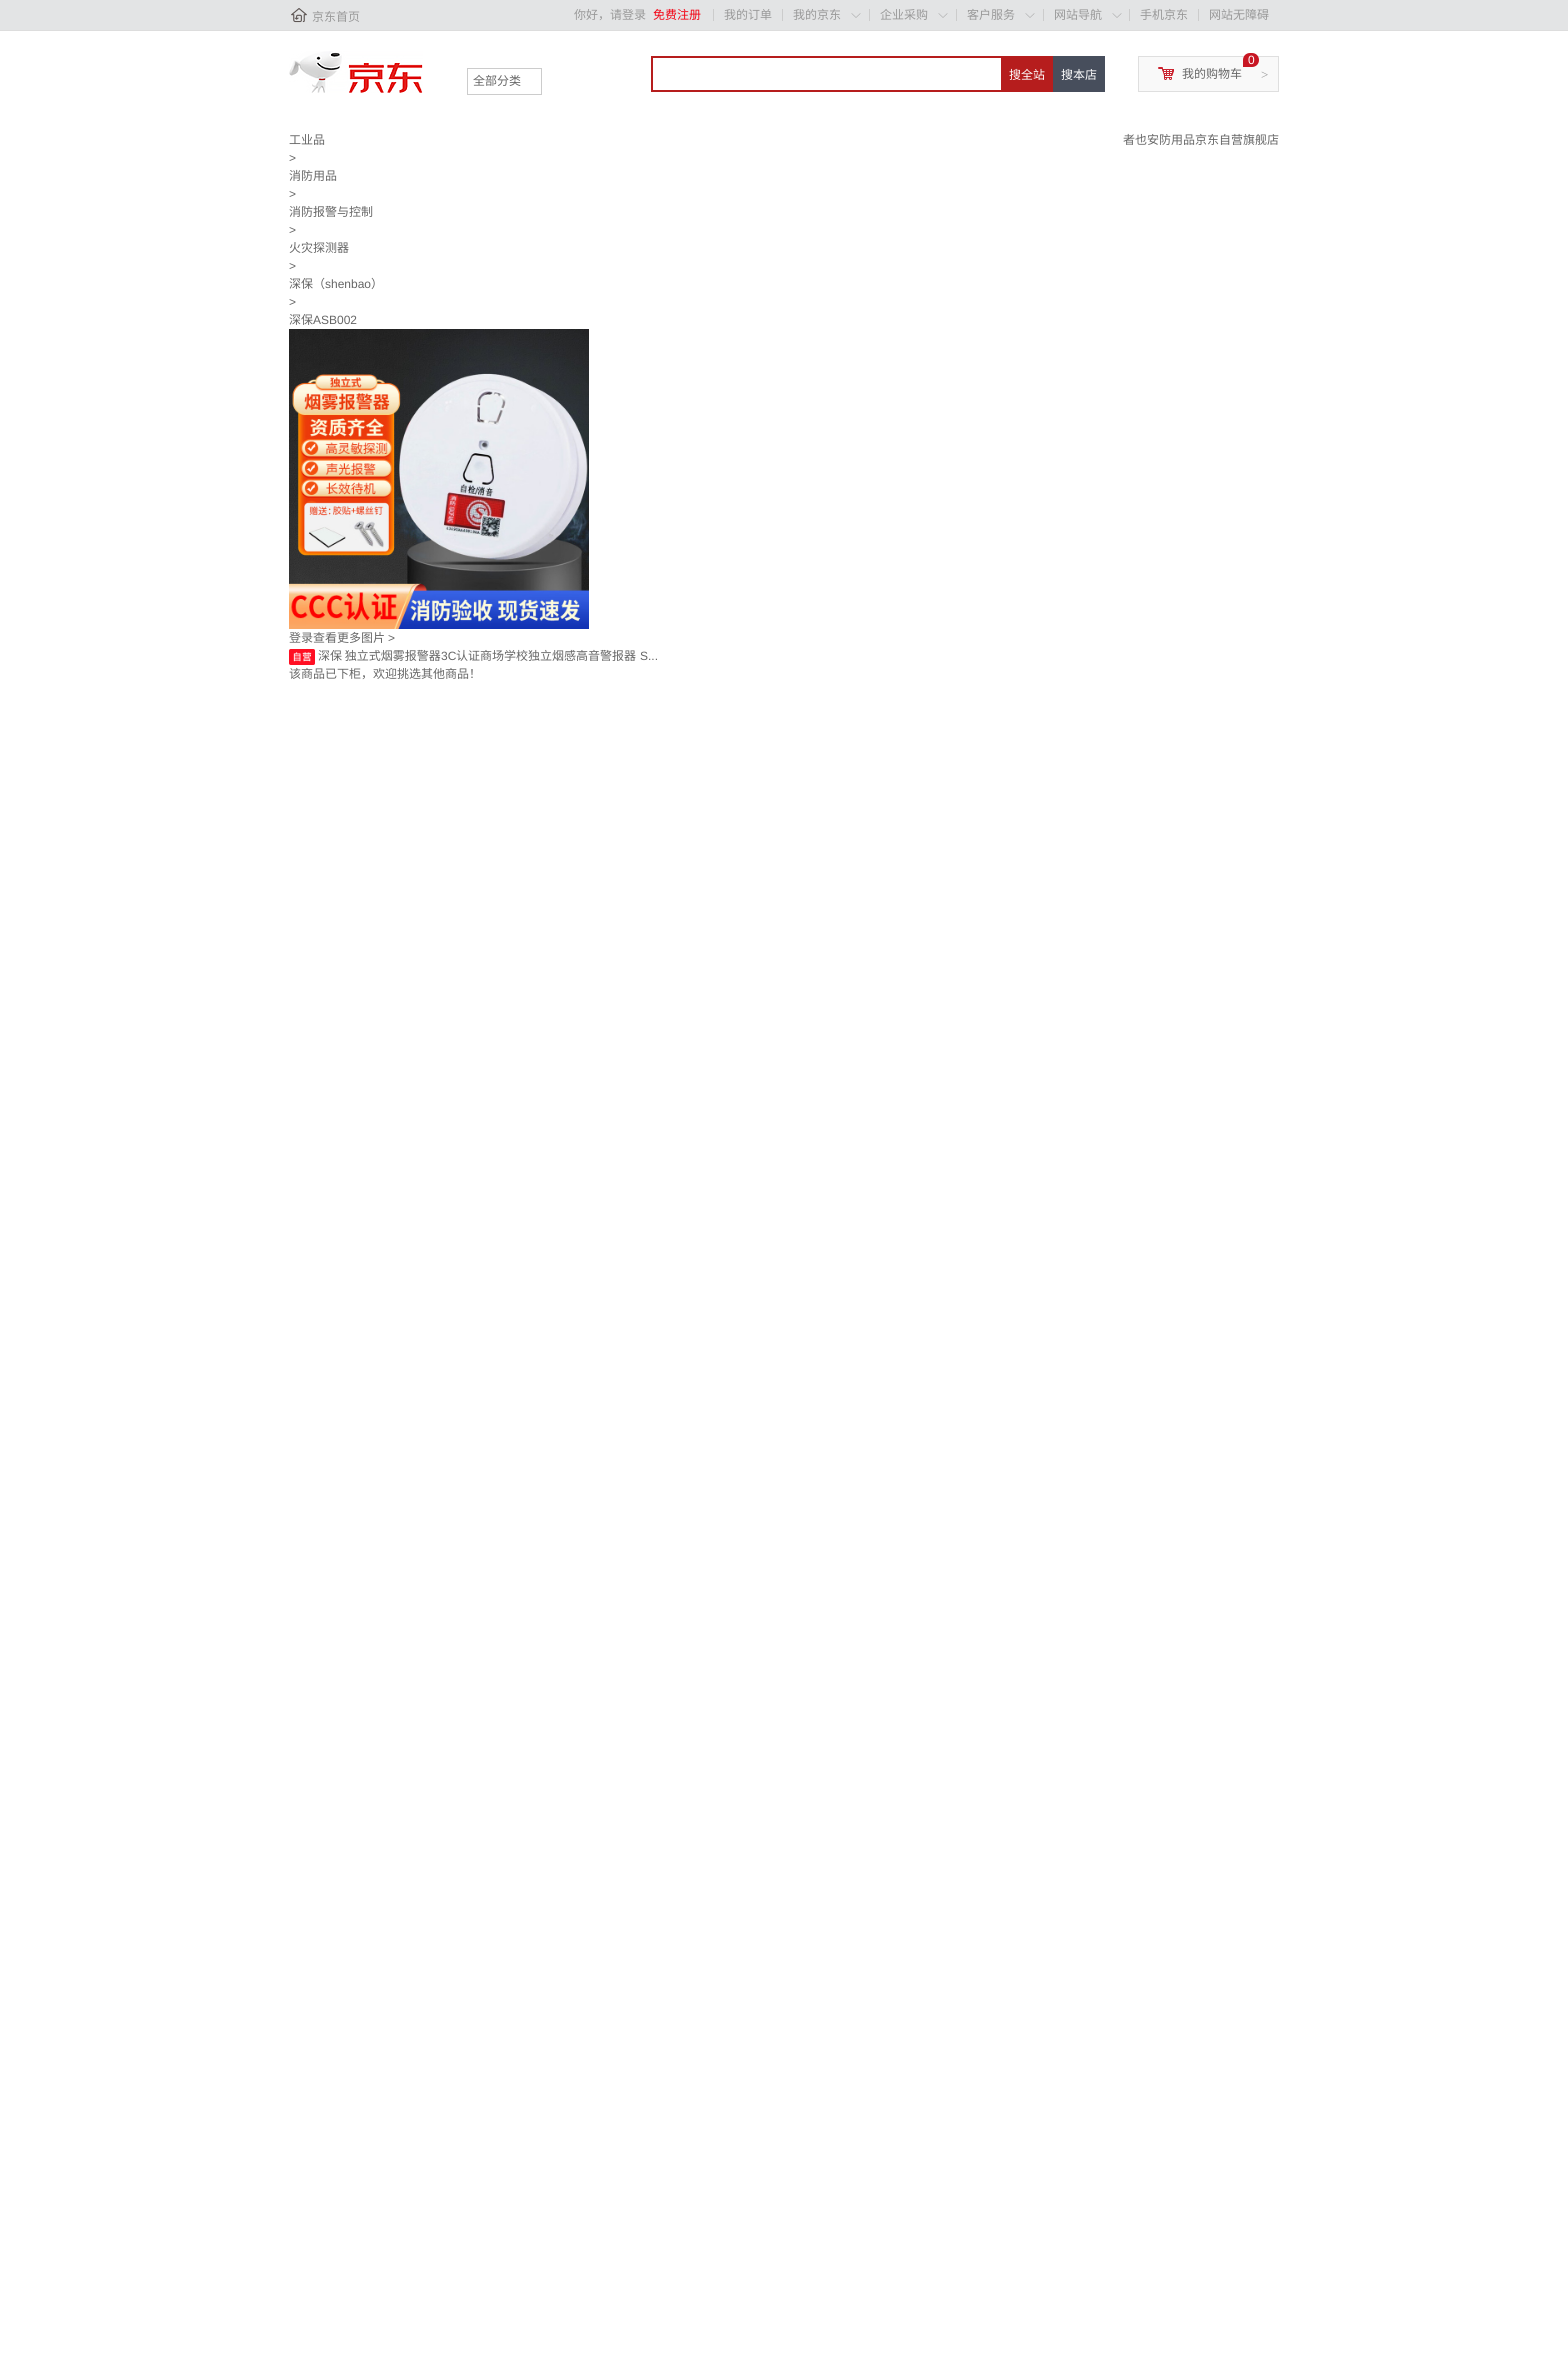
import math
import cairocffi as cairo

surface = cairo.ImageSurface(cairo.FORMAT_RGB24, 1568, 2371)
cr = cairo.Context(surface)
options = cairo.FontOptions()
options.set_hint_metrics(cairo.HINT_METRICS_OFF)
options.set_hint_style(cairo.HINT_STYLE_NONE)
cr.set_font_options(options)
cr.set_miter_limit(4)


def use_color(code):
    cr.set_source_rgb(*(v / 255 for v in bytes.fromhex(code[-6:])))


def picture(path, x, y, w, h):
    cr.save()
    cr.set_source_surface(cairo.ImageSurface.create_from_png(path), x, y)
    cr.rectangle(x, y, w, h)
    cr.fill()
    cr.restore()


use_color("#ffffff")
cr.paint()
use_color("#e3e4e5")
cr.rectangle(0, 0, 1568, 30)
cr.fill()
use_color("#dddddd")
cr.rectangle(0, 30, 1568, 1)
cr.fill()
picture("img1.png", 291, 8, 16, 15)
cr.select_font_face("Noto Sans CJK SC")
cr.set_font_size(12)
use_color("#999999")
cr.move_to(312, 21)
cr.show_text("京东首页")
cr.move_to(574, 19)
cr.show_text("你好，请登录")
use_color("#f30213")
cr.move_to(653, 19)
cr.show_text("免费注册")
use_color("#cccccc")
cr.rectangle(713, 9, 1, 12)
cr.fill()
use_color("#999999")
cr.move_to(724, 19)
cr.show_text("我的订单")
use_color("#cccccc")
cr.rectangle(782, 9, 1, 12)
cr.fill()
use_color("#999999")
cr.move_to(793, 19)
cr.show_text("我的京东")
picture("img2.png", 851, 13, 10, 5)
use_color("#cccccc")
cr.rectangle(869, 9, 1, 12)
cr.fill()
use_color("#999999")
cr.move_to(880, 19)
cr.show_text("企业采购")
picture("img2.png", 938, 13, 10, 5)
use_color("#cccccc")
cr.rectangle(956, 9, 1, 12)
cr.fill()
use_color("#999999")
cr.move_to(967, 19)
cr.show_text("客户服务")
picture("img2.png", 1025, 13, 10, 5)
use_color("#cccccc")
cr.rectangle(1043, 9, 1, 12)
cr.fill()
use_color("#999999")
cr.move_to(1054, 19)
cr.show_text("网站导航")
picture("img2.png", 1112, 13, 10, 5)
use_color("#cccccc")
cr.rectangle(1129, 9, 1, 12)
cr.fill()
use_color("#999999")
cr.move_to(1140, 19)
cr.show_text("手机京东")
use_color("#cccccc")
cr.rectangle(1198, 9, 1, 12)
cr.fill()
use_color("#999999")
cr.move_to(1209, 19)
cr.show_text("网站无障碍")
picture("img3.png", 289, 51, 134, 42)
cr.rectangle(467.5, 68.5, 74, 26)
use_color("#cccccc")
cr.set_line_width(1)
cr.stroke()
use_color("#666666")
cr.move_to(473, 85)
cr.show_text("全部分类")
use_color("#b61d1d")
cr.rectangle(651, 56, 350, 2)
cr.fill()
cr.rectangle(651, 90, 350, 2)
cr.fill()
cr.rectangle(651, 56, 2, 36)
cr.fill()
cr.rectangle(1001, 56, 52, 36)
cr.fill()
use_color("#ffffff")
cr.move_to(1009, 79)
cr.show_text("搜全站")
use_color("#474e5c")
cr.rectangle(1053, 56, 52, 36)
cr.fill()
use_color("#ffffff")
cr.move_to(1061, 79)
cr.show_text("搜本店")
use_color("#f9f9f9")
cr.rectangle(1138.5, 56.5, 140, 35)
cr.fill_preserve()
use_color("#dfdfdf")
cr.stroke()
use_color("#c81623")
cr.new_path()
cr.move_to(1250, 53)
cr.line_to(1252, 53)
cr.curve_to(1256, 53, 1259, 56, 1259, 60)
cr.curve_to(1259, 64, 1256, 67, 1252, 67)
cr.line_to(1243, 67)
cr.line_to(1243, 60)
cr.curve_to(1243, 56, 1246, 53, 1250, 53)
cr.close_path()
cr.fill()
cr.select_font_face("Liberation Sans")
use_color("#ffffff")
cr.move_to(1248, 64)
cr.show_text("0")
picture("img4.png", 1158, 67, 16, 13)
cr.select_font_face("Noto Sans CJK SC")
use_color("#666666")
cr.move_to(1182, 78)
cr.show_text("我的购物车")
cr.select_font_face("Liberation Serif")
cr.set_font_size(13)
use_color("#999999")
cr.move_to(1261, 79)
cr.show_text(">")
cr.select_font_face("Noto Sans CJK SC")
cr.set_font_size(12)
use_color("#666666")
cr.move_to(289, 144)
cr.show_text("工业品")
cr.select_font_face("Liberation Sans")
cr.move_to(289, 162)
cr.show_text(">")
cr.select_font_face("Noto Sans CJK SC")
cr.move_to(289, 180)
cr.show_text("消防用品")
cr.select_font_face("Liberation Sans")
cr.move_to(289, 198)
cr.show_text(">")
cr.select_font_face("Noto Sans CJK SC")
cr.move_to(289, 216)
cr.show_text("消防报警与控制")
cr.select_font_face("Liberation Sans")
cr.move_to(289, 234)
cr.show_text(">")
cr.select_font_face("Noto Sans CJK SC")
cr.move_to(289, 252)
cr.show_text("火灾探测器")
cr.select_font_face("Liberation Sans")
cr.move_to(289, 270)
cr.show_text(">")
cr.select_font_face("Noto Sans CJK SC")
cr.move_to(289, 288)
cr.show_text("深保（")
cr.select_font_face("Liberation Sans")
cr.move_to(325, 288)
cr.show_text("shenbao")
cr.select_font_face("Noto Sans CJK SC")
cr.move_to(371, 288)
cr.show_text("）")
cr.select_font_face("Liberation Sans")
cr.move_to(289, 306)
cr.show_text(">")
cr.select_font_face("Noto Sans CJK SC")
cr.move_to(289, 324)
cr.show_text("深保")
cr.select_font_face("Liberation Sans")
cr.move_to(313, 324)
cr.show_text("ASB002")
cr.select_font_face("Noto Sans CJK SC")
cr.move_to(1123, 144)
cr.show_text("者也安防用品京东自营旗舰店")
picture("img5.png", 289, 329, 300, 300)
cr.move_to(289, 642)
cr.show_text("登录查看更多图片")
cr.select_font_face("Liberation Sans")
cr.move_to(388, 642)
cr.show_text(">")
picture("img6.png", 289, 649, 26, 16)
cr.select_font_face("Noto Sans CJK SC")
cr.move_to(318, 660)
cr.show_text("深保 独立式烟雾报警器")
cr.select_font_face("Liberation Sans")
cr.move_to(441, 660)
cr.show_text("3C")
cr.select_font_face("Noto Sans CJK SC")
cr.move_to(456, 660)
cr.show_text("认证商场学校独立烟感高音警报器")
cr.select_font_face("Liberation Sans")
cr.move_to(640, 660)
cr.show_text("S...")
cr.select_font_face("Noto Sans CJK SC")
cr.move_to(289, 678)
cr.show_text("该商品已下柜，欢迎挑选其他商品！")
surface.write_to_png("result.png")
